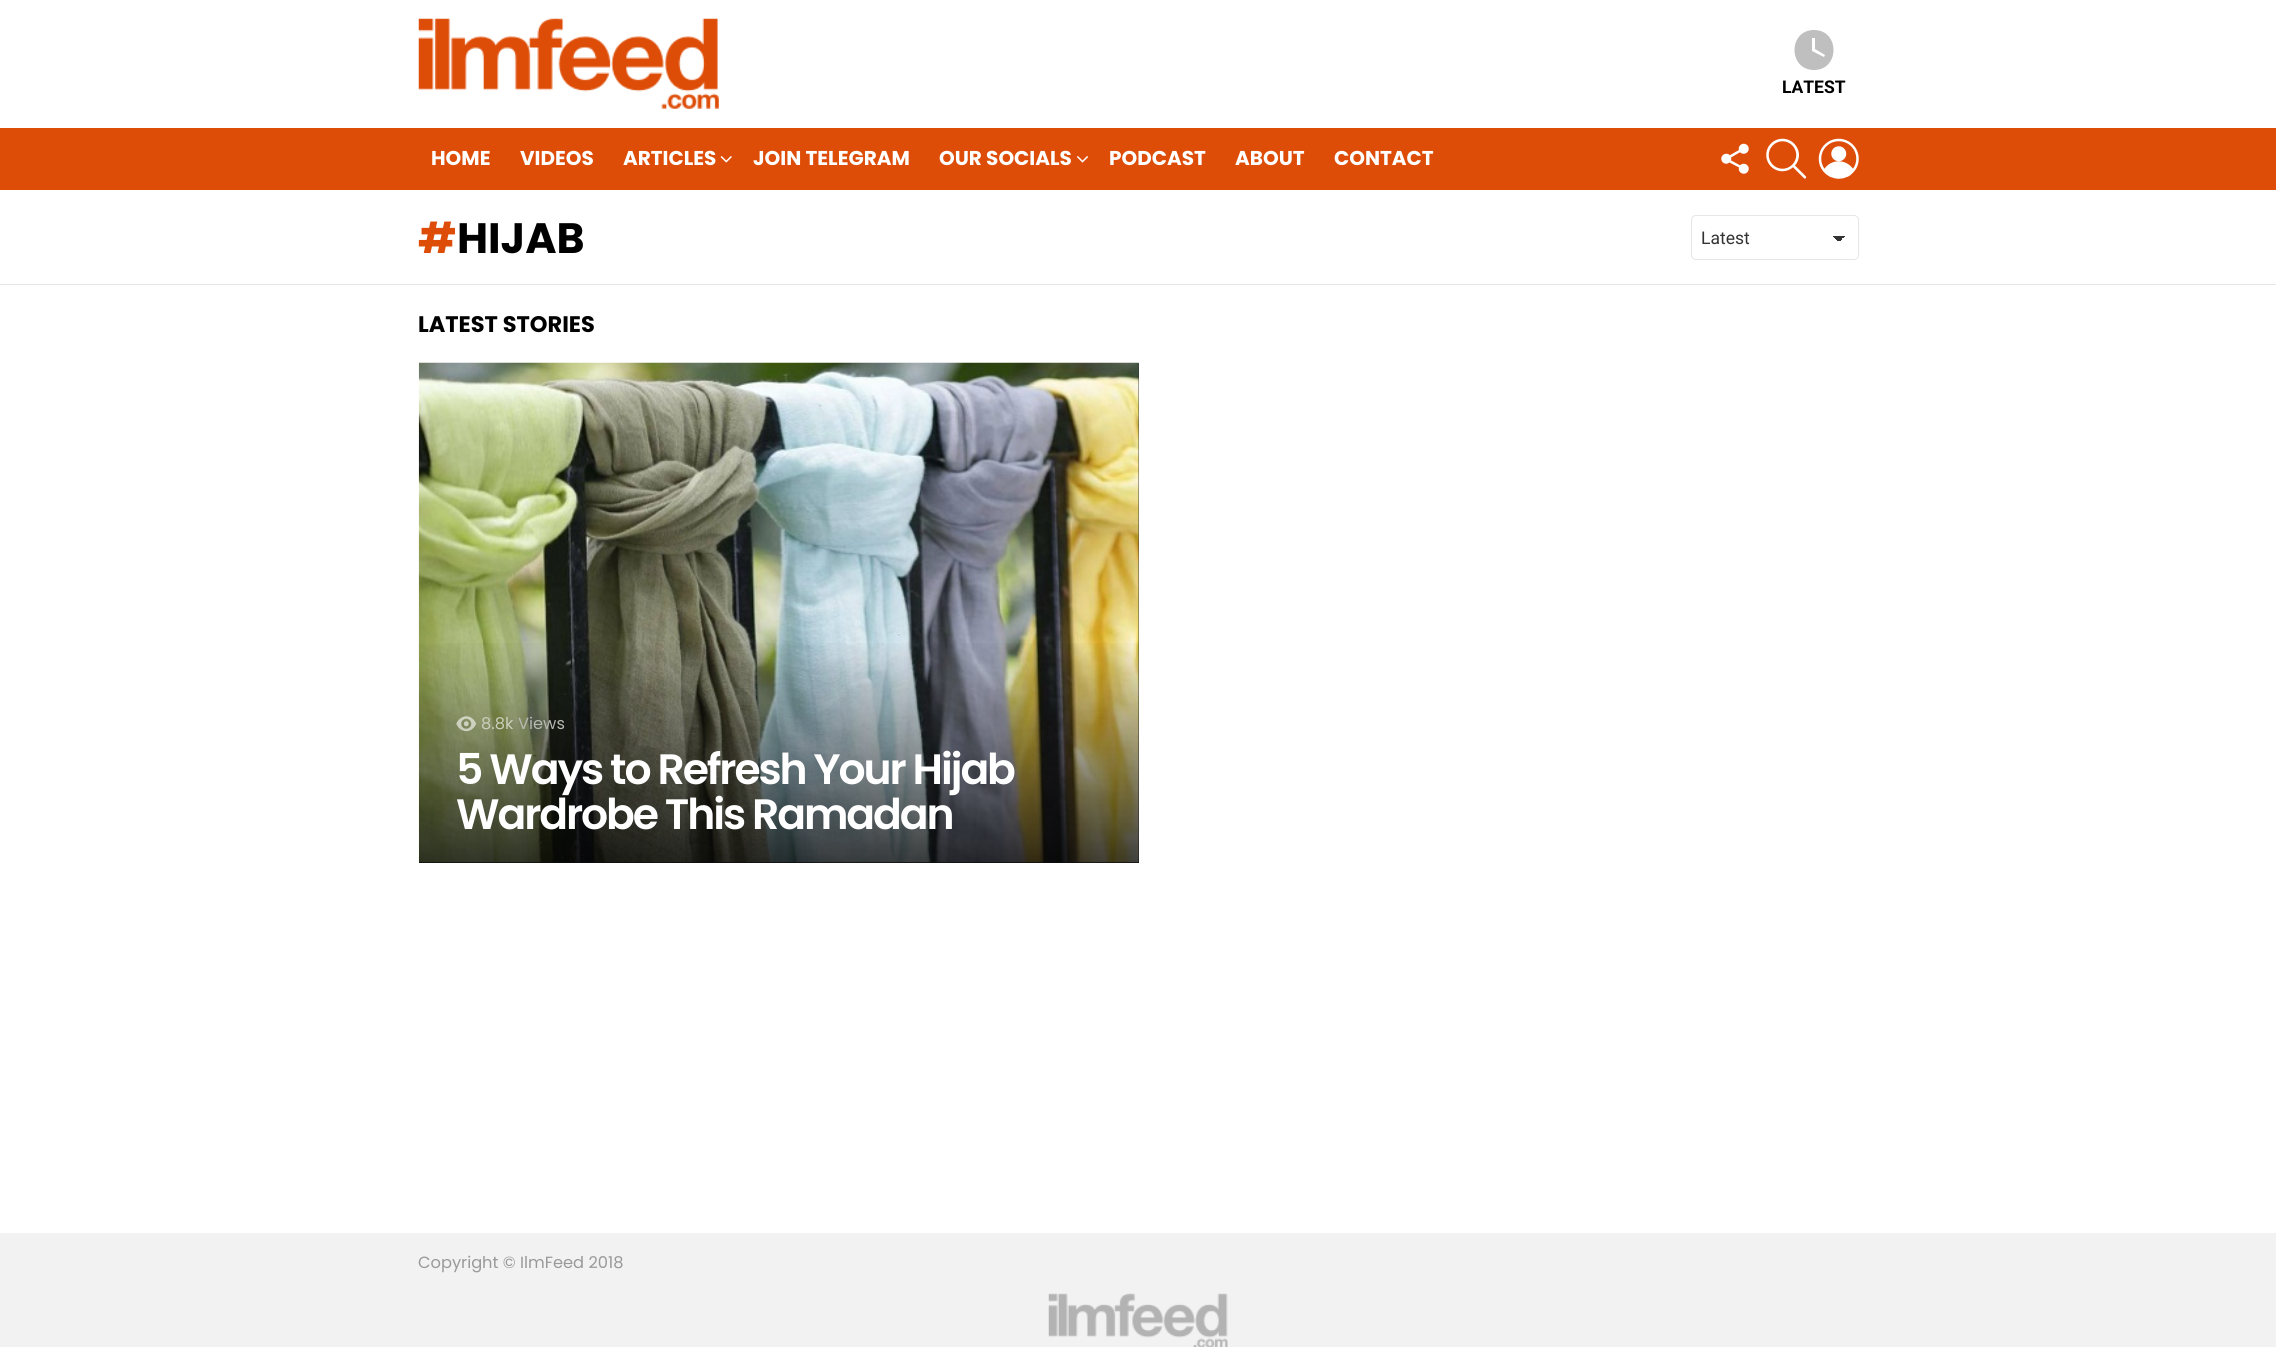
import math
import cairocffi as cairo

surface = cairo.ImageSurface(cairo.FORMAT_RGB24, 2276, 1347)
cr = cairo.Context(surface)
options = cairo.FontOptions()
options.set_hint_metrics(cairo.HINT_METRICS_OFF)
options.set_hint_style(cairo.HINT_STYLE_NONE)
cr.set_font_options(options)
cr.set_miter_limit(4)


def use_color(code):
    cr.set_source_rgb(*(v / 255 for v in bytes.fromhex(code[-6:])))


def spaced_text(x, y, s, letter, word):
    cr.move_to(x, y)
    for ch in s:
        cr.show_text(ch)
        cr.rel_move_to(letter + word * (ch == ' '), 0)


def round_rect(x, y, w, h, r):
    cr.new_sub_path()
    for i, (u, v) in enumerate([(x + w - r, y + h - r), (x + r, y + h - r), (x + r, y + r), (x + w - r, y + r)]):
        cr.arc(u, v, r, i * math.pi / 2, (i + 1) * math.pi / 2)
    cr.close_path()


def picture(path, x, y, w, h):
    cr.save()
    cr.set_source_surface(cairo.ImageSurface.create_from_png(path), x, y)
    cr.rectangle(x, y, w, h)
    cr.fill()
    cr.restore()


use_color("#ffffff")
cr.paint()
picture("img1.png", 418, 18, 301, 91)
use_color("#bfbfbf")
cr.new_path()
cr.move_to(1814, 30)
cr.curve_to(1788, 30, 1788, 70, 1814, 70)
cr.curve_to(1840, 70, 1840, 30, 1814, 30)
cr.close_path()
cr.move_to(1824, 57)
cr.line_to(1812, 51)
cr.line_to(1812, 38)
cr.line_to(1815, 38)
cr.line_to(1815, 49)
cr.line_to(1825, 55)
cr.close_path()
cr.fill()
cr.select_font_face("Roboto", cairo.FONT_SLANT_NORMAL, cairo.FONT_WEIGHT_BOLD)
cr.set_font_size(17.5)
use_color("#000000")
cr.move_to(1782, 93)
cr.show_text("LATEST")
use_color("#de4d08")
cr.rectangle(0, 128, 2276, 62)
cr.fill()
cr.select_font_face("Poppins", cairo.FONT_SLANT_NORMAL, cairo.FONT_WEIGHT_BOLD)
cr.set_font_size(20)
use_color("#ffffff")
cr.move_to(431, 165)
cr.show_text("HOME")
cr.move_to(520, 165)
cr.show_text("VIDEOS")
cr.move_to(623, 165)
cr.show_text("ARTICLES")
picture("img2.png", 720, 156, 12, 7)
cr.move_to(753, 165)
cr.show_text("JOIN TELEGRAM")
cr.move_to(939, 165)
cr.show_text("OUR SOCIALS")
picture("img3.png", 1077, 156, 11, 7)
cr.move_to(1109, 165)
cr.show_text("PODCAST")
cr.move_to(1235, 165)
cr.show_text("ABOUT")
cr.move_to(1334, 165)
cr.show_text("CONTACT")
picture("img4.png", 1721, 143, 28, 31)
picture("img5.png", 1766, 138, 41, 41)
picture("img6.png", 1818, 138, 41, 41)
cr.set_font_size(42.5)
use_color("#de4d08")
cr.move_to(418, 253)
cr.show_text("#")
use_color("#000000")
cr.move_to(457, 253)
cr.show_text("HIJAB")
gradient = cairo.LinearGradient(1839, 236, 1845, 242)
gradient.add_color_stop_rgba(0.5, 0.2, 0.2, 0.2, 1)
gradient.add_color_stop_rgba(0.5, 1, 1, 1, 1)
cr.set_source(gradient)
cr.rectangle(1839, 236, 6, 5)
cr.fill()
gradient = cairo.LinearGradient(1833, 242, 1838, 236)
gradient.add_color_stop_rgba(0.5, 1, 1, 1, 1)
gradient.add_color_stop_rgba(0.5, 0.2, 0.2, 0.2, 1)
cr.set_source(gradient)
cr.rectangle(1833, 236, 6, 5)
cr.fill()
round_rect(1691.5, 215.5, 167, 44, 4.5)
use_color("#e6e6e6")
cr.set_line_width(1)
cr.stroke()
cr.select_font_face("Roboto")
cr.set_font_size(17.5)
use_color("#333333")
cr.move_to(1701, 244)
cr.show_text("Latest")
use_color("#e6e6e6")
cr.rectangle(0, 284, 2276, 1)
cr.fill()
cr.select_font_face("Poppins", cairo.FONT_SLANT_NORMAL, cairo.FONT_WEIGHT_BOLD)
cr.set_font_size(22.5)
use_color("#000000")
cr.move_to(418, 332)
cr.show_text("LATEST STORIES")
use_color("#333333")
cr.rectangle(419, 363, 720, 500)
cr.fill()
picture("img7.png", 418, 362, 721, 501)
gradient = cairo.LinearGradient(779, 636, 779, 863)
gradient.add_color_stop_rgba(0, 0, 0, 0, 0)
gradient.add_color_stop_rgba(1, 0, 0, 0, 0.75)
cr.set_source(gradient)
cr.rectangle(419, 643, 720, 220)
cr.fill()
picture("img8.png", 456, 716, 21, 16)
cr.select_font_face("Poppins")
cr.set_font_size(16.25)
use_color("#cacebb")
cr.move_to(481, 729)
cr.show_text("8.8k")
use_color("#b6b9b1")
cr.move_to(518, 729)
cr.show_text("Views")
cr.select_font_face("Poppins SemiBold")
cr.set_font_size(42.5)
use_color("#ffffff")
spaced_text(456, 784, "5 Ways to Refresh Your Hijab", -2.1, 0)
spaced_text(456, 829, "Wardrobe This Ramadan", -2.1, 0)
use_color("#f2f2f2")
cr.rectangle(0, 1233, 2276, 114)
cr.fill()
cr.select_font_face("Poppins")
cr.set_font_size(16.25)
use_color("#999999")
cr.move_to(418, 1268)
cr.show_text("Copyright © IlmFeed 2018")
picture("img9.png", 1048, 1293, 180, 54)
surface.write_to_png("result.png")
